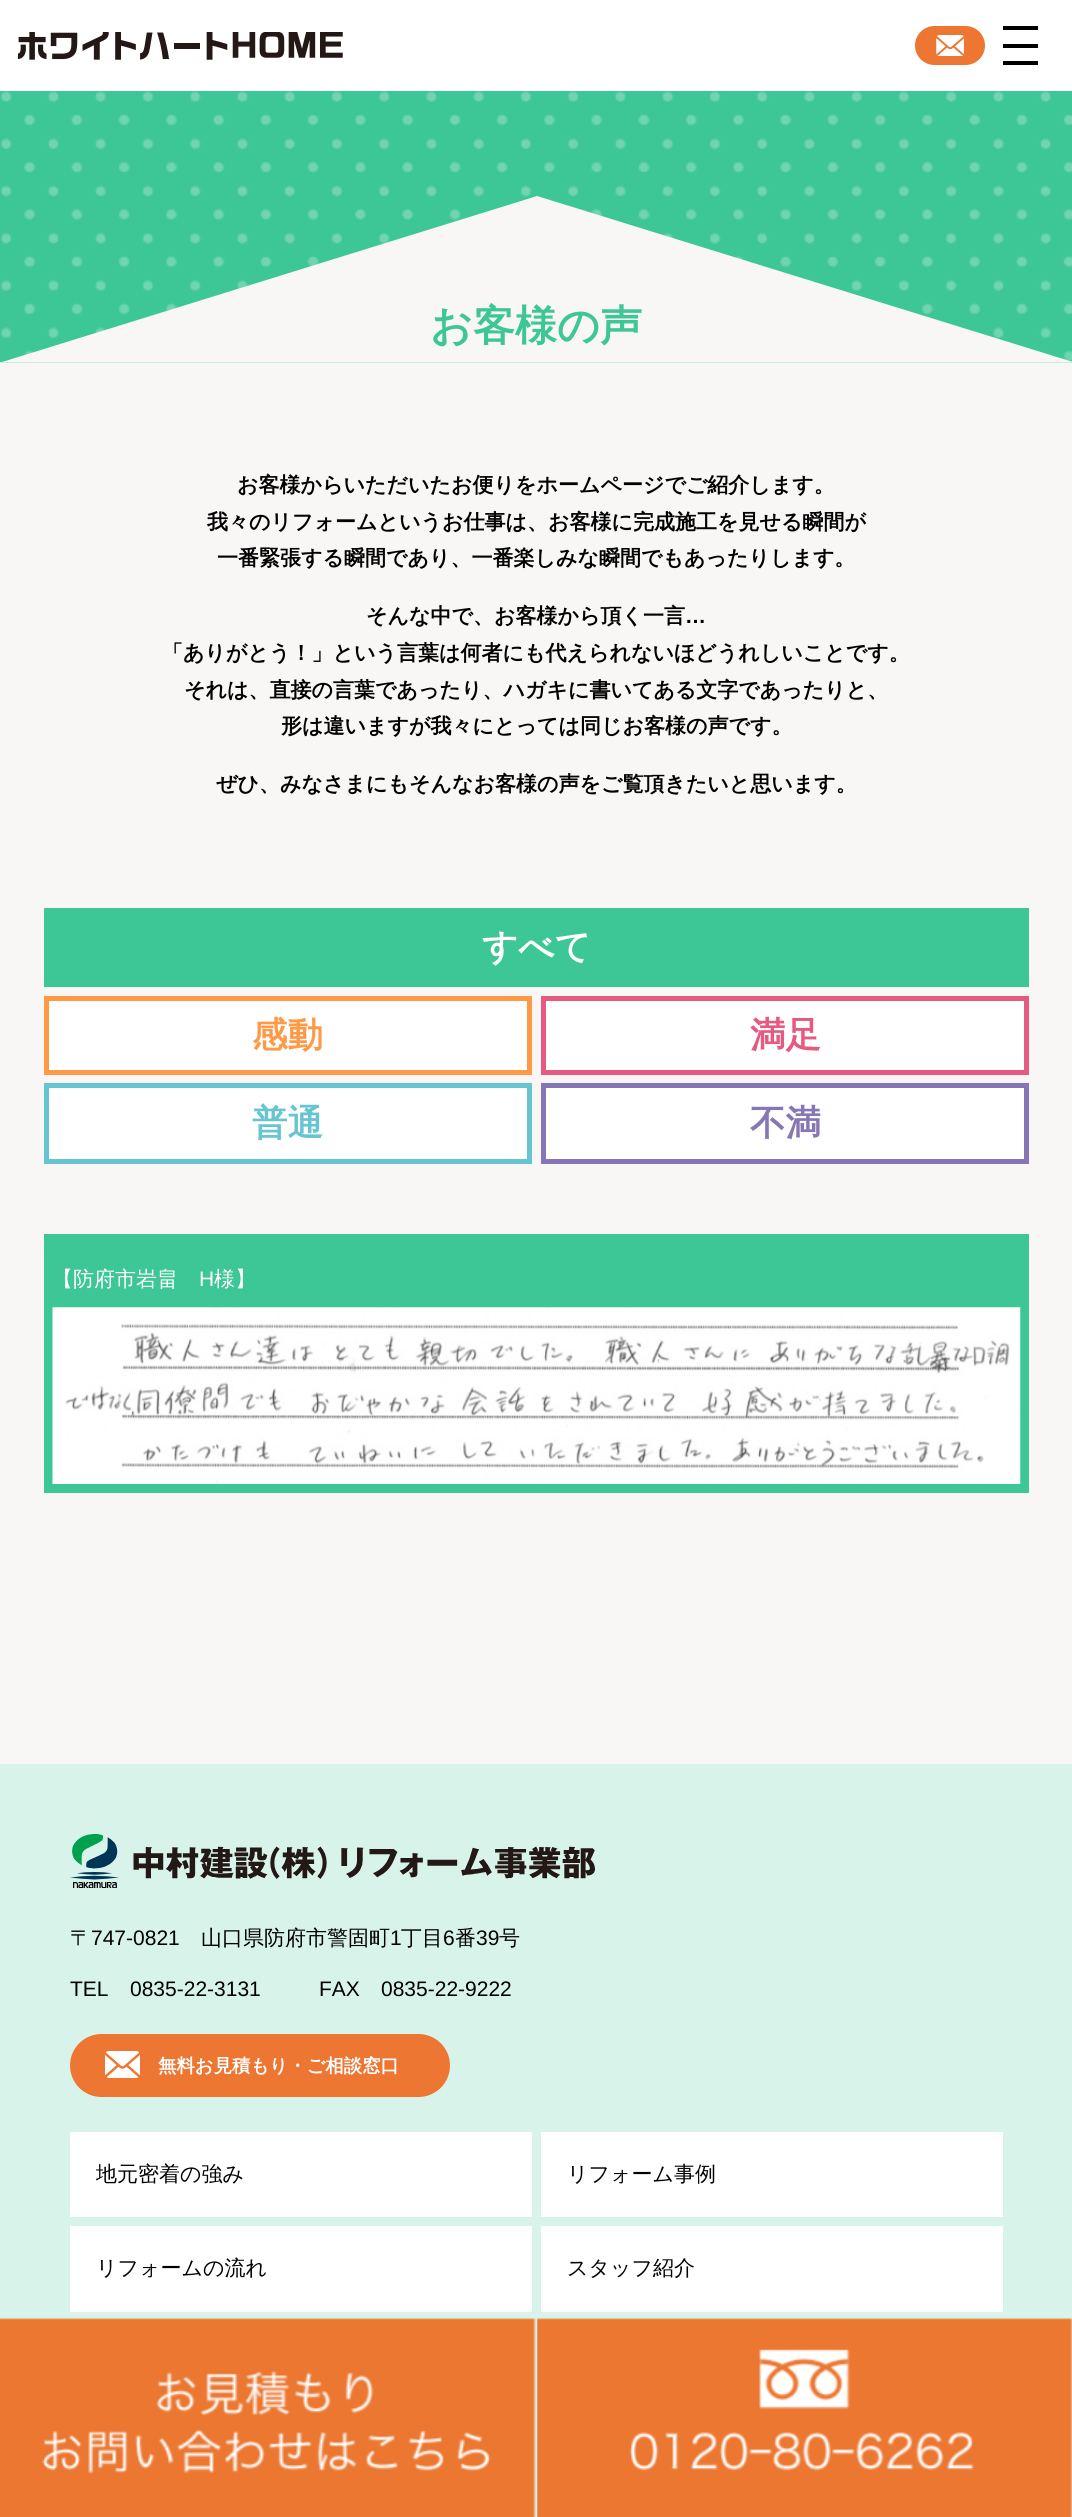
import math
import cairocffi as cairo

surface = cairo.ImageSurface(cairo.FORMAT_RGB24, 1072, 2517)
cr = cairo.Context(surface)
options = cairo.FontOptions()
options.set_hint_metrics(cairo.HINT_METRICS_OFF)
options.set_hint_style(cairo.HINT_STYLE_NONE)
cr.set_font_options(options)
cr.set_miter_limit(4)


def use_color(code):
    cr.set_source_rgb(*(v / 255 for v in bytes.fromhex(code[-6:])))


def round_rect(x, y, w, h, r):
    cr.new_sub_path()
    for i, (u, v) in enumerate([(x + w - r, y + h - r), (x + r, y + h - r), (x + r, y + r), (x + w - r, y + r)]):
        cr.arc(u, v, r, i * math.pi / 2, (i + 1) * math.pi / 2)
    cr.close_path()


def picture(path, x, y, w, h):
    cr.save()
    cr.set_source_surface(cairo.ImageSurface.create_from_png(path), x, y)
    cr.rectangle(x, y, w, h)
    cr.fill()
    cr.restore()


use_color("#ffffff")
cr.paint()
picture("img1.png", 18, 32, 325, 28)
use_color("#ec7632")
round_rect(915, 26, 70, 39, 19.5)
cr.fill()
picture("img2.png", 936, 35, 28, 21)
use_color("#000000")
cr.rectangle(1003, 26, 35, 4)
cr.fill()
cr.rectangle(1003, 44, 35, 4)
cr.fill()
cr.rectangle(1003, 61, 35, 4)
cr.fill()
use_color("#f9f7f6")
cr.rectangle(0, 362, 1072, 1402)
cr.fill()
picture("img3.png", 0, 91, 1072, 272)
cr.new_path()
cr.move_to(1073, 362)
cr.line_to(2, 362)
cr.line_to(537, 196)
cr.close_path()
cr.fill()
cr.select_font_face("WenQuanYi Zen Hei", cairo.FONT_SLANT_NORMAL, cairo.FONT_WEIGHT_BOLD)
cr.set_font_size(42)
use_color("#3dc696")
cr.move_to(430, 340)
cr.show_text("お客様の声")
cr.set_font_size(21)
use_color("#000000")
cr.move_to(237, 492)
cr.show_text("お客様からいただいたお便りをホームページでご紹介します。")
cr.move_to(207, 529)
cr.show_text("我々のリフォームというお仕事は、お客様に完成施工を見せる瞬間が")
cr.move_to(217, 565)
cr.show_text("一番緊張する瞬間であり、一番楽しみな瞬間でもあったりします。")
cr.move_to(366, 623)
cr.show_text("そんな中で、お客様から頂く一言")
cr.select_font_face("Liberation Sans", cairo.FONT_SLANT_NORMAL, cairo.FONT_WEIGHT_BOLD)
cr.move_to(685, 623)
cr.show_text("…")
cr.select_font_face("WenQuanYi Zen Hei", cairo.FONT_SLANT_NORMAL, cairo.FONT_WEIGHT_BOLD)
cr.move_to(162, 660)
cr.show_text("「ありがとう！」という言葉は何者にも代えられないほどうれしいことです。")
cr.move_to(184, 697)
cr.show_text("それは、直接の言葉であったり、ハガキに書いてある文字であったりと、")
cr.move_to(281, 733)
cr.show_text("形は違いますが我々にとっては同じお客様の声です。")
cr.move_to(216, 791)
cr.show_text("ぜひ、みなさまにもそんなお客様の声をご覧頂きたいと思います。")
use_color("#3dc696")
cr.rectangle(44, 908, 985, 79)
cr.fill()
cr.set_font_size(35.5)
use_color("#ffffff")
cr.move_to(482, 959)
cr.show_text("すべて")
cr.rectangle(46.5, 998.5, 483, 74)
cr.fill_preserve()
use_color("#ff9945")
cr.set_line_width(5)
cr.stroke()
cr.move_to(252, 1047)
cr.show_text("感動")
use_color("#ffffff")
cr.rectangle(543.5, 998.5, 483, 74)
cr.fill_preserve()
use_color("#e65981")
cr.stroke()
cr.move_to(750, 1047)
cr.show_text("満足")
use_color("#ffffff")
cr.rectangle(46.5, 1085.5, 483, 76)
cr.fill_preserve()
use_color("#66c5d1")
cr.stroke()
cr.move_to(252, 1135)
cr.show_text("普通")
use_color("#ffffff")
cr.rectangle(543.5, 1085.5, 483, 76)
cr.fill_preserve()
use_color("#8776b5")
cr.stroke()
cr.move_to(750, 1135)
cr.show_text("不満")
use_color("#3dc696")
cr.rectangle(44, 1234, 985, 259)
cr.fill()
cr.select_font_face("WenQuanYi Zen Hei Medium")
cr.set_font_size(21)
use_color("#ffffff")
cr.move_to(52, 1286)
cr.show_text("【防府市岩畠")
cr.select_font_face("Liberation Sans")
cr.move_to(199, 1286)
cr.show_text("H")
cr.select_font_face("WenQuanYi Zen Hei Medium")
cr.move_to(214, 1286)
cr.show_text("様】")
picture("img4.png", 52, 1307, 969, 177)
use_color("#d8f4ea")
cr.rectangle(0, 1764, 1072, 753)
cr.fill()
picture("img5.png", 70, 1834, 525, 54)
use_color("#000000")
cr.move_to(70, 1945)
cr.show_text("〒")
cr.select_font_face("Liberation Sans")
cr.move_to(91, 1945)
cr.show_text("747-0821")
cr.select_font_face("WenQuanYi Zen Hei Medium")
cr.move_to(201, 1945)
cr.show_text("山口県防府市警固町")
cr.select_font_face("Liberation Sans")
cr.move_to(390, 1945)
cr.show_text("1")
cr.select_font_face("WenQuanYi Zen Hei Medium")
cr.move_to(401, 1945)
cr.show_text("丁目")
cr.select_font_face("Liberation Sans")
cr.move_to(443, 1945)
cr.show_text("6")
cr.select_font_face("WenQuanYi Zen Hei Medium")
cr.move_to(455, 1945)
cr.show_text("番")
cr.select_font_face("Liberation Sans")
cr.move_to(476, 1945)
cr.show_text("39")
cr.select_font_face("WenQuanYi Zen Hei Medium")
cr.move_to(499, 1945)
cr.show_text("号")
cr.select_font_face("Liberation Sans")
cr.move_to(70, 1996)
cr.show_text("TEL")
cr.move_to(130, 1996)
cr.show_text("0835-22-3131")
cr.move_to(319, 1996)
cr.show_text("FAX")
cr.move_to(381, 1996)
cr.show_text("0835-22-9222")
use_color("#ec7632")
round_rect(70, 2034, 380, 63, 31.5)
cr.fill()
picture("img6.png", 105, 2051, 35, 27)
cr.select_font_face("WenQuanYi Zen Hei", cairo.FONT_SLANT_NORMAL, cairo.FONT_WEIGHT_BOLD)
cr.set_font_size(18.4)
use_color("#ffffff")
cr.move_to(158, 2072)
cr.show_text("無料お見積もり・ご相談窓口")
cr.rectangle(70, 2132, 462, 85)
cr.fill()
cr.select_font_face("WenQuanYi Zen Hei Medium")
cr.set_font_size(21)
use_color("#000000")
cr.move_to(96, 2181)
cr.show_text("地元密着の強み")
use_color("#ffffff")
cr.rectangle(541, 2132, 462, 85)
cr.fill()
use_color("#000000")
cr.move_to(567, 2181)
cr.show_text("リフォーム事例")
use_color("#ffffff")
cr.rectangle(70, 2226, 462, 86)
cr.fill()
use_color("#000000")
cr.move_to(96, 2275)
cr.show_text("リフォームの流れ")
use_color("#ffffff")
cr.rectangle(541, 2226, 462, 86)
cr.fill()
use_color("#000000")
cr.move_to(567, 2275)
cr.show_text("スタッフ紹介")
picture("img7.png", 0, 2318, 536, 199)
picture("img8.png", 537, 2318, 535, 199)
surface.write_to_png("result.png")
